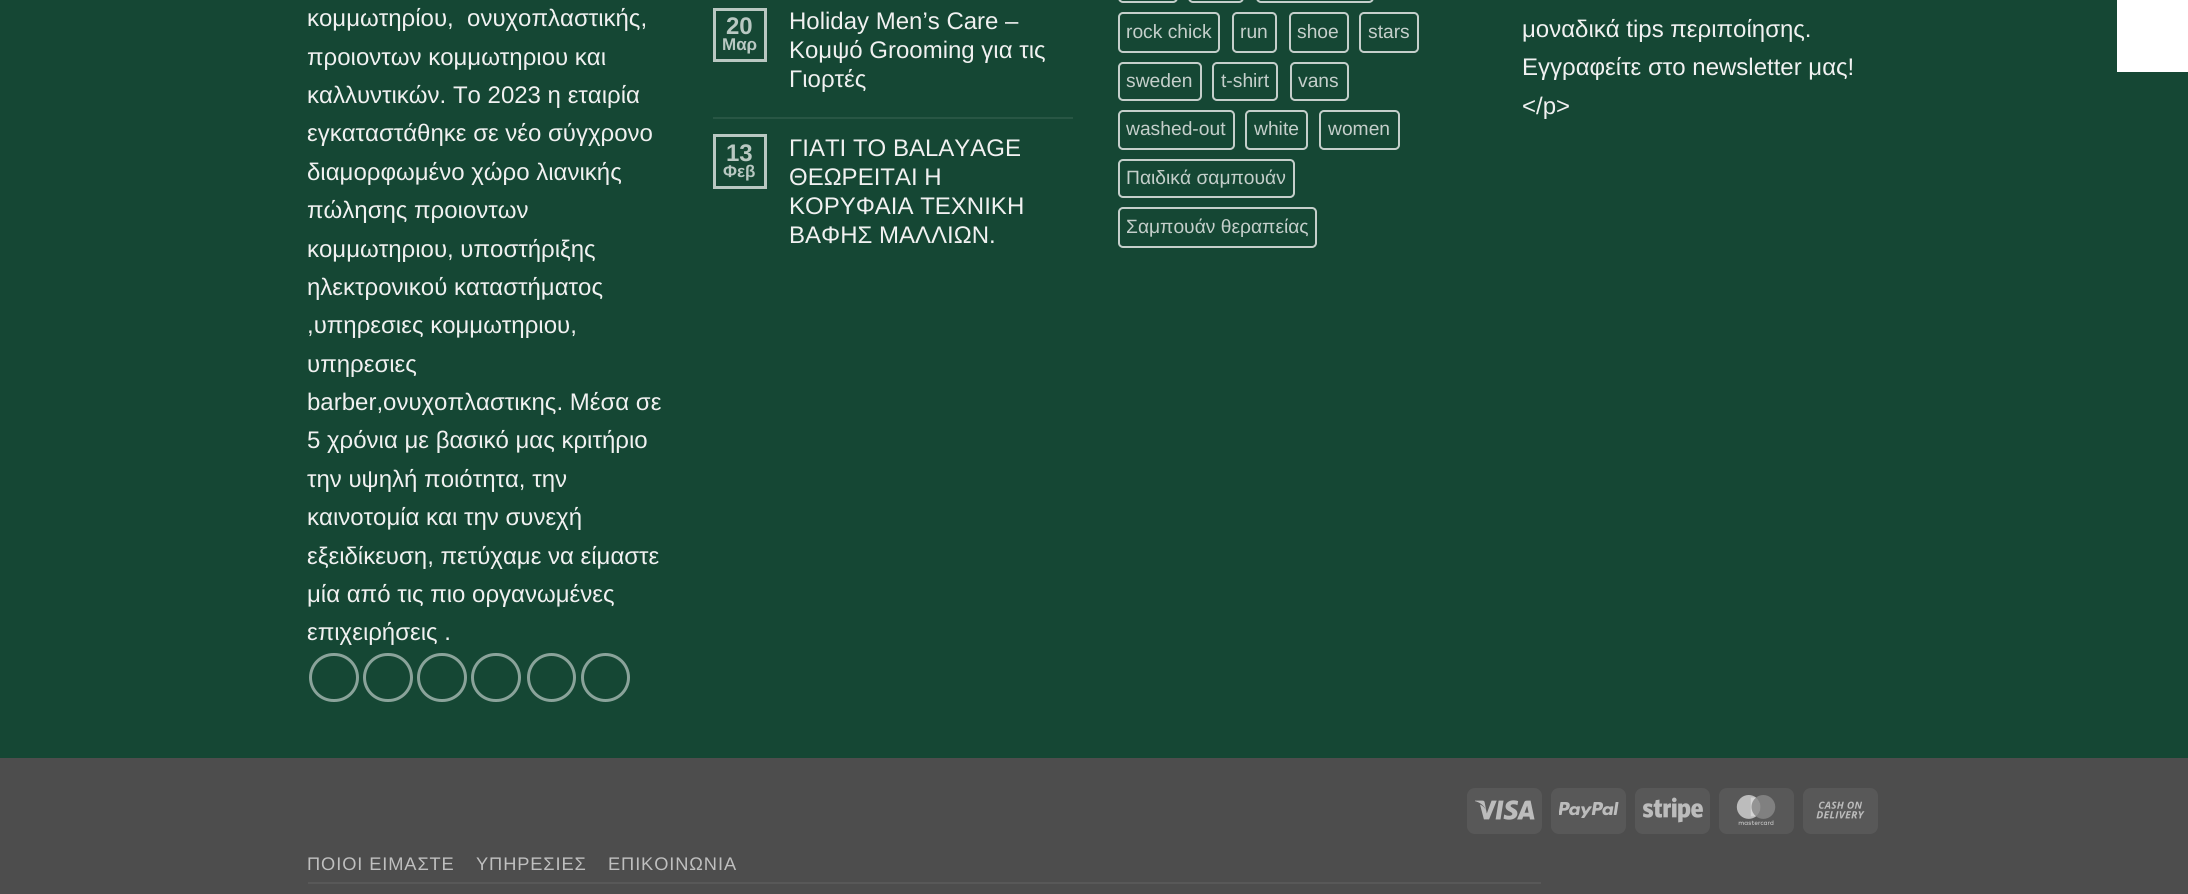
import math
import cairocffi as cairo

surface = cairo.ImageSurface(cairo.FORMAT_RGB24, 2188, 894)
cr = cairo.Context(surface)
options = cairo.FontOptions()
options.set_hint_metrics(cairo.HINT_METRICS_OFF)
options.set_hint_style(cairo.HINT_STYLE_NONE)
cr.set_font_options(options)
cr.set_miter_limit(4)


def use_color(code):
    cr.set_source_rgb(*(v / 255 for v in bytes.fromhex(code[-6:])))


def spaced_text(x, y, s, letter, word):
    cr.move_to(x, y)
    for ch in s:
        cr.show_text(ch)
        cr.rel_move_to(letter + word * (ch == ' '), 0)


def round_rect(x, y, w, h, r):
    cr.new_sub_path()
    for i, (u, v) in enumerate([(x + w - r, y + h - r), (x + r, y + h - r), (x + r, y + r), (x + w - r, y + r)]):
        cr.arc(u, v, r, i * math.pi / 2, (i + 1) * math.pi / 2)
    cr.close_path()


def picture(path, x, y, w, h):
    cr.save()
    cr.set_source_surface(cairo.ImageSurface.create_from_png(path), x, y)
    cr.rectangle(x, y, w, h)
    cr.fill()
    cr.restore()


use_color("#154734")
cr.paint()
cr.select_font_face("Liberation Sans")
cr.set_font_size(24)
use_color("#f1f1f1")
cr.move_to(307, 26)
cr.show_text("κομμωτηρίου,  ονυχοπλαστικής,")
cr.move_to(307, 65)
cr.show_text("προιοντων κομμωτηριου και")
cr.move_to(307, 103)
cr.show_text("καλλυντικών. Το 2023 η εταιρία")
cr.move_to(307, 141)
cr.show_text("εγκαταστάθηκε σε νέο σύγχρονο")
cr.move_to(307, 180)
cr.show_text("διαμορφωμένο χώρο λιανικής")
cr.move_to(307, 218)
cr.show_text("πώλησης προιοντων")
cr.move_to(307, 257)
cr.show_text("κομμωτηριου, υποστήριξης")
cr.move_to(307, 295)
cr.show_text("ηλεκτρονικού καταστήματος")
cr.move_to(307, 333)
cr.show_text(",υπηρεσιες κομμωτηριου,")
cr.move_to(307, 372)
cr.show_text("υπηρεσιες")
cr.move_to(307, 410)
cr.show_text("barber,ονυχοπλαστικης. Μέσα σε")
cr.move_to(307, 448)
cr.show_text("5 χρόνια με βασικό μας κριτήριο")
cr.move_to(307, 487)
cr.show_text("την υψηλή ποιότητα, την")
cr.move_to(307, 525)
cr.show_text("καινοτομία και την συνεχή")
cr.move_to(307, 564)
cr.show_text("εξειδίκευση, πετύχαμε να είμαστε")
cr.move_to(307, 602)
cr.show_text("μία από τις πιο οργανωμένες")
cr.move_to(307, 640)
cr.show_text("επιχειρήσεις .")
round_rect(310.5, 654.5, 47, 46, 23)
use_color("#8aa39a")
cr.set_line_width(3)
cr.stroke()
round_rect(364.5, 654.5, 47, 46, 23)
cr.stroke()
round_rect(418.5, 654.5, 47, 46, 23)
cr.stroke()
round_rect(472.5, 654.5, 47, 46, 23)
cr.stroke()
cr.arc(551.5, 677.5, 23, 0, 2 * math.pi)
cr.stroke()
cr.arc(605.5, 677.5, 23, 0, 2 * math.pi)
cr.stroke()
cr.rectangle(714.5, 9.5, 51, 51)
use_color("#b9c8c2")
cr.stroke()
cr.select_font_face("Liberation Sans", cairo.FONT_SLANT_NORMAL, cairo.FONT_WEIGHT_BOLD)
cr.move_to(726, 34)
cr.show_text("20")
cr.set_font_size(17)
cr.move_to(722, 50)
cr.show_text("Μαρ")
cr.select_font_face("Liberation Sans")
cr.set_font_size(24)
use_color("#f1f1f1")
cr.move_to(789, 29)
cr.show_text("Holiday Men’s Care –")
cr.move_to(789, 58)
cr.show_text("Κομψό Grooming για τις")
cr.move_to(789, 87)
cr.show_text("Γιορτές")
use_color("#285644")
cr.rectangle(713, 117, 360, 2)
cr.fill()
cr.rectangle(714.5, 135.5, 51, 52)
use_color("#b9c8c2")
cr.stroke()
cr.select_font_face("Liberation Sans", cairo.FONT_SLANT_NORMAL, cairo.FONT_WEIGHT_BOLD)
cr.move_to(726, 161)
cr.show_text("13")
cr.set_font_size(17)
cr.move_to(723, 177)
cr.show_text("Φεβ")
cr.select_font_face("Liberation Sans")
cr.set_font_size(24)
use_color("#f1f1f1")
cr.move_to(789, 156)
cr.show_text("ΓΙΑΤΙ TO BALAYAGE")
cr.move_to(789, 185)
cr.show_text("ΘΕΩΡΕΙΤΑΙ Η")
cr.move_to(789, 214)
cr.show_text("ΚΟΡΥΦΑΙΑ ΤΕΧΝΙΚΗ")
cr.move_to(789, 243)
cr.show_text("ΒΑΦΗΣ ΜΑΛΛΙΩΝ.")
round_rect(1119, -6, 58, 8, 4)
use_color("#c5cfcb")
cr.set_line_width(2)
cr.stroke()
round_rect(1189, -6, 54, 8, 4)
cr.stroke()
round_rect(1257, -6, 116, 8, 4)
cr.stroke()
round_rect(1119, 13, 100, 39, 4)
cr.stroke()
cr.set_font_size(19.25)
cr.move_to(1126, 38)
cr.show_text("rock chick")
round_rect(1233, 13, 43, 39, 4)
cr.stroke()
cr.move_to(1240, 38)
cr.show_text("run")
round_rect(1290, 13, 58, 39, 4)
cr.stroke()
cr.move_to(1297, 38)
cr.show_text("shoe")
round_rect(1360, 13, 58, 39, 4)
cr.stroke()
cr.move_to(1368, 38)
cr.show_text("stars")
round_rect(1119, 63, 82, 37, 4)
cr.stroke()
cr.move_to(1126, 87)
cr.show_text("sweden")
round_rect(1213, 63, 64, 37, 4)
cr.stroke()
cr.move_to(1221, 87)
cr.show_text("t-shirt")
round_rect(1291, 63, 57, 37, 4)
cr.stroke()
cr.move_to(1298, 87)
cr.show_text("vans")
round_rect(1119, 111, 115, 38, 4)
cr.stroke()
cr.move_to(1126, 135)
cr.show_text("washed-out")
round_rect(1246, 111, 61, 38, 4)
cr.stroke()
cr.move_to(1254, 135)
cr.show_text("white")
round_rect(1320, 111, 79, 38, 4)
cr.stroke()
cr.move_to(1328, 135)
cr.show_text("women")
round_rect(1119, 160, 175, 37, 4)
cr.stroke()
cr.move_to(1126, 184)
cr.show_text("Παιδικά σαμπουάν")
round_rect(1119, 208, 197, 39, 4)
cr.stroke()
cr.move_to(1126, 233)
cr.show_text("Σαμπουάν θεραπείας")
cr.set_font_size(24)
use_color("#f1f1f1")
cr.move_to(1522, 37)
cr.show_text("μοναδικά tips περιποίησης.")
cr.move_to(1522, 75)
cr.show_text("Εγγραφείτε στο newsletter μας!")
cr.move_to(1522, 114)
cr.show_text("</p>")
use_color("#4d4d4d")
cr.rectangle(0, 758, 2188, 136)
cr.fill()
use_color("#585858")
round_rect(1467, 788, 75, 46, 8)
cr.fill()
picture("img1.png", 1475, 800, 60, 20)
round_rect(1551, 788, 75, 46, 8)
cr.fill()
picture("img2.png", 1559, 802, 60, 16)
round_rect(1635, 788, 75, 46, 8)
cr.fill()
picture("img3.png", 1643, 797, 60, 26)
round_rect(1719, 788, 75, 46, 8)
cr.fill()
picture("img4.png", 1736, 795, 40, 30)
round_rect(1803, 788, 75, 46, 8)
cr.fill()
picture("img5.png", 1816, 801, 49, 18)
cr.rectangle(308, 882, 1233, 2)
cr.fill()
cr.set_font_size(18.25)
use_color("#bfbfbf")
spaced_text(307, 870, "ΠΟΙΟΙ ΕΙΜΑΣΤΕ", 0.9, 0)
spaced_text(476, 870, "ΥΠΗΡΕΣΙΕΣ", 0.9, 0)
spaced_text(608, 870, "ΕΠΙΚΟΙΝΩΝΙΑ", 0.9, 0)
use_color("#ffffff")
cr.rectangle(2117, 0, 71, 72)
cr.fill()
surface.write_to_png("result.png")
